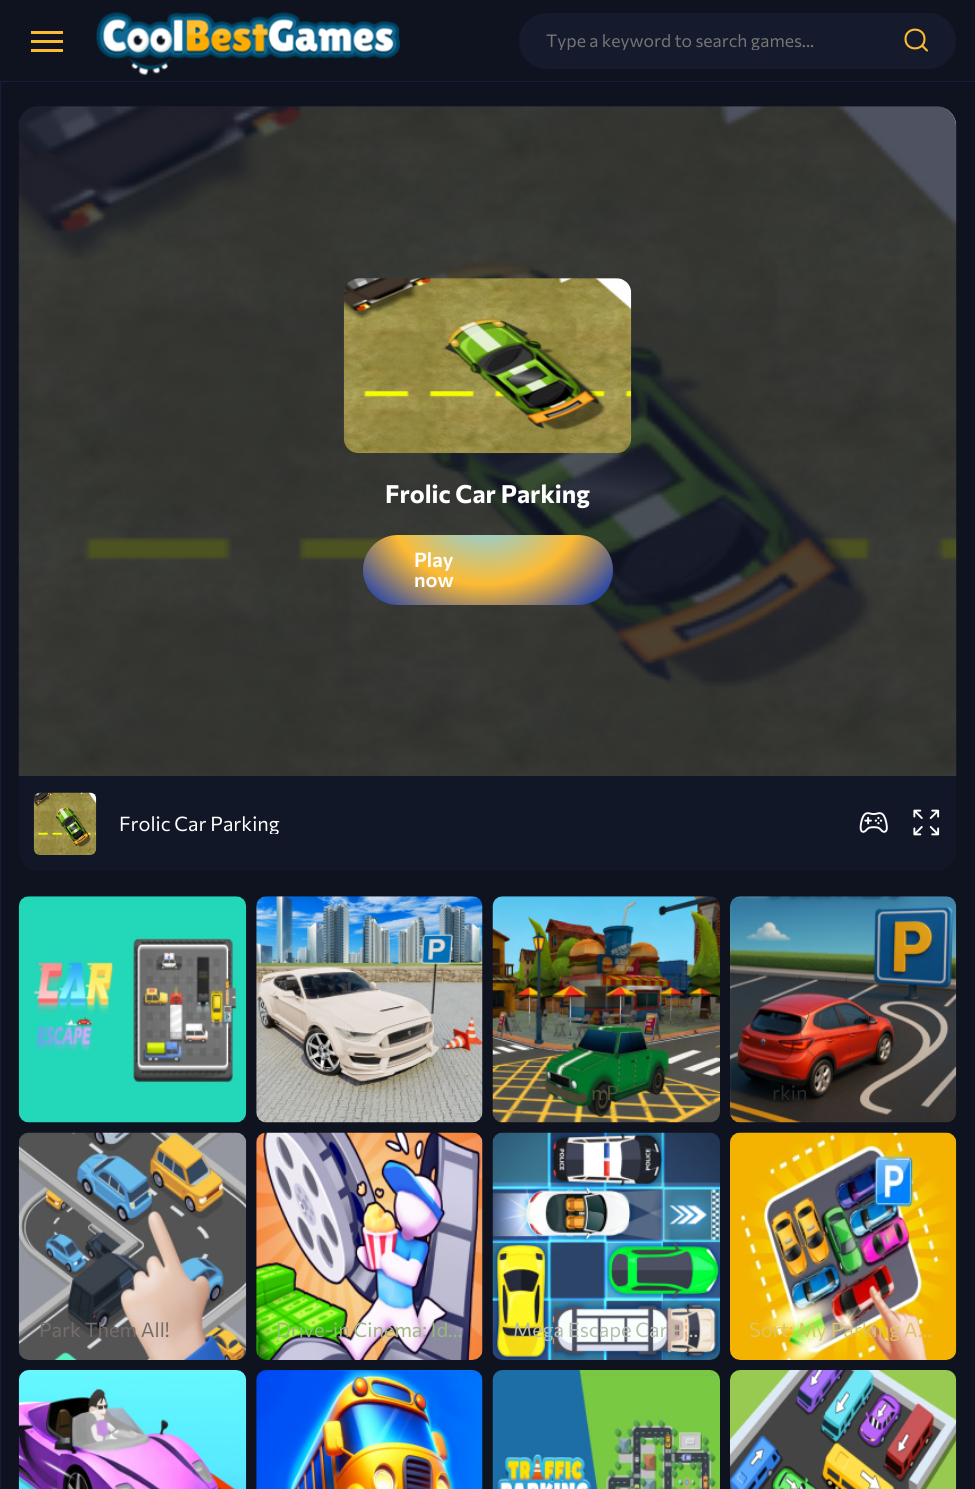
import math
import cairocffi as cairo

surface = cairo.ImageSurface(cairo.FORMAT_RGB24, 975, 1489)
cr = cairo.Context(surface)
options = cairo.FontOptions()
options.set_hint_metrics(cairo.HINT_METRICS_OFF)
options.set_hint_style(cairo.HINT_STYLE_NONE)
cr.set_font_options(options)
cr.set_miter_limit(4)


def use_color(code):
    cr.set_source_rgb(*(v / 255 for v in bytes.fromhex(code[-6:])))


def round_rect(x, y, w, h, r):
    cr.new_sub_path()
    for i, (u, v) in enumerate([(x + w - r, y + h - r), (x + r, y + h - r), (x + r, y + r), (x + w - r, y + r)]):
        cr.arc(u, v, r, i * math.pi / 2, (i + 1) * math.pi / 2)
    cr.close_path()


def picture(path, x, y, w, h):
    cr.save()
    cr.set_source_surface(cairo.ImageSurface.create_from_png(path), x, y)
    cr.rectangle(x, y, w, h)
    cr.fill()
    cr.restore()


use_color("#0f131f")
cr.paint()
use_color("#161e3a")
cr.rectangle(0, 81, 975, 1)
cr.fill()
use_color("#fdbb33")
cr.rectangle(31, 31, 32, 3)
cr.fill()
cr.rectangle(31, 40, 32, 3)
cr.fill()
cr.rectangle(31, 49, 32, 3)
cr.fill()
picture("img1.png", 96, 12, 305, 64)
use_color("#151a2c")
round_rect(519, 13, 437, 56, 28)
cr.fill()
cr.save()
cr.rectangle(546, 29, 353, 21)
cr.clip()
cr.select_font_face("Commissioner")
cr.set_font_size(17.5)
use_color("#757575")
cr.move_to(546, 47)
cr.show_text("Type a keyword to search games...")
cr.restore()
cr.new_path()
cr.move_to(927, 50.5)
cr.line_to(922, 45.5)
cr.move_to(924.5, 39)
cr.curve_to(924.5, 51.5, 905.5, 51.5, 905.5, 39)
cr.curve_to(905.5, 26.5, 924.5, 26.5, 924.5, 39)
cr.close_path()
use_color("#fdbb33")
cr.set_line_width(2.1)
cr.set_line_cap(cairo.LINE_CAP_ROUND)
cr.set_line_join(cairo.LINE_JOIN_ROUND)
cr.stroke()
use_color("#161e3a")
cr.rectangle(0, 81, 1, 1408)
cr.fill()
picture("img2.png", 18, 106, 939, 670)
cr.set_source_rgba(0.082, 0.102, 0.173, 0.75)
cr.new_path()
cr.move_to(39, 106)
cr.line_to(936, 106)
cr.curve_to(947, 106, 956, 115, 956, 126)
cr.line_to(956, 776)
cr.line_to(19, 776)
cr.line_to(19, 126)
cr.curve_to(19, 115, 28, 106, 39, 106)
cr.close_path()
cr.fill()
picture("img3.png", 343, 278, 289, 176)
cr.select_font_face("Commissioner", cairo.FONT_SLANT_NORMAL, cairo.FONT_WEIGHT_BOLD)
cr.set_font_size(25)
use_color("#ffffff")
cr.move_to(385, 503)
cr.show_text("Frolic Car Parking")
gradient = cairo.RadialGradient(0, 0, 0, 0, 0, 1)
gradient.set_matrix(cairo.Matrix(1 / 159, 0, 0, 1 / 131, -1 * 485 / 159, -1 * 506 / 131))
gradient.add_color_stop_rgba(0.05, 0.463, 0.831, 1, 1)
gradient.add_color_stop_rgba(0.6, 0.992, 0.733, 0.2, 1)
gradient.add_color_stop_rgba(0.99, 0.18, 0.286, 0.655, 1)
cr.set_source(gradient)
round_rect(363, 535, 250, 70, 35)
cr.fill()
cr.select_font_face("Commissioner SemiBold")
cr.set_font_size(20)
use_color("#ffffff")
cr.move_to(414, 567)
cr.show_text("Play")
cr.move_to(414, 587)
cr.show_text("now")
use_color("#121727")
cr.new_path()
cr.move_to(19, 776)
cr.line_to(956, 776)
cr.line_to(956, 851)
cr.curve_to(956, 862, 947, 871, 936, 871)
cr.line_to(39, 871)
cr.curve_to(28, 871, 19, 862, 19, 851)
cr.close_path()
cr.fill()
picture("img4.png", 33, 792, 64, 63)
cr.save()
cr.rectangle(119, 814, 717, 20)
cr.clip()
cr.select_font_face("Commissioner")
use_color("#ffffff")
cr.move_to(119, 831)
cr.show_text("Frolic Car Parking")
cr.restore()
picture("img5.png", 859, 812, 29, 21)
picture("img6.png", 913, 809, 27, 27)
picture("img7.png", 18, 896, 229, 227)
picture("img8.png", 256, 896, 227, 227)
picture("img9.png", 492, 896, 228, 227)
cr.select_font_face("Commissioner")
use_color("#4b5435")
cr.move_to(591, 1100)
cr.show_text("n P")
picture("img10.png", 730, 896, 227, 227)
use_color("#2c2926")
cr.move_to(772, 1100)
cr.show_text("rkin")
picture("img11.png", 18, 1132, 229, 228)
use_color("#756d6a")
cr.move_to(39, 1337)
cr.show_text("Park Them All!")
picture("img12.png", 256, 1132, 227, 228)
use_color("#99b77d")
cr.move_to(276, 1337)
cr.show_text("Drive-in Cinema: Id…")
picture("img13.png", 492, 1132, 228, 228)
use_color("#b6bcad")
cr.move_to(513, 1337)
cr.show_text("Mega Escape Car P…")
picture("img14.png", 730, 1132, 227, 228)
use_color("#dec461")
cr.move_to(749, 1337)
cr.show_text("Sort: My Parking A…")
picture("img15.png", 18, 1370, 229, 119)
picture("img16.png", 256, 1370, 227, 119)
picture("img17.png", 492, 1370, 228, 119)
picture("img18.png", 730, 1370, 227, 119)
surface.write_to_png("result.png")
